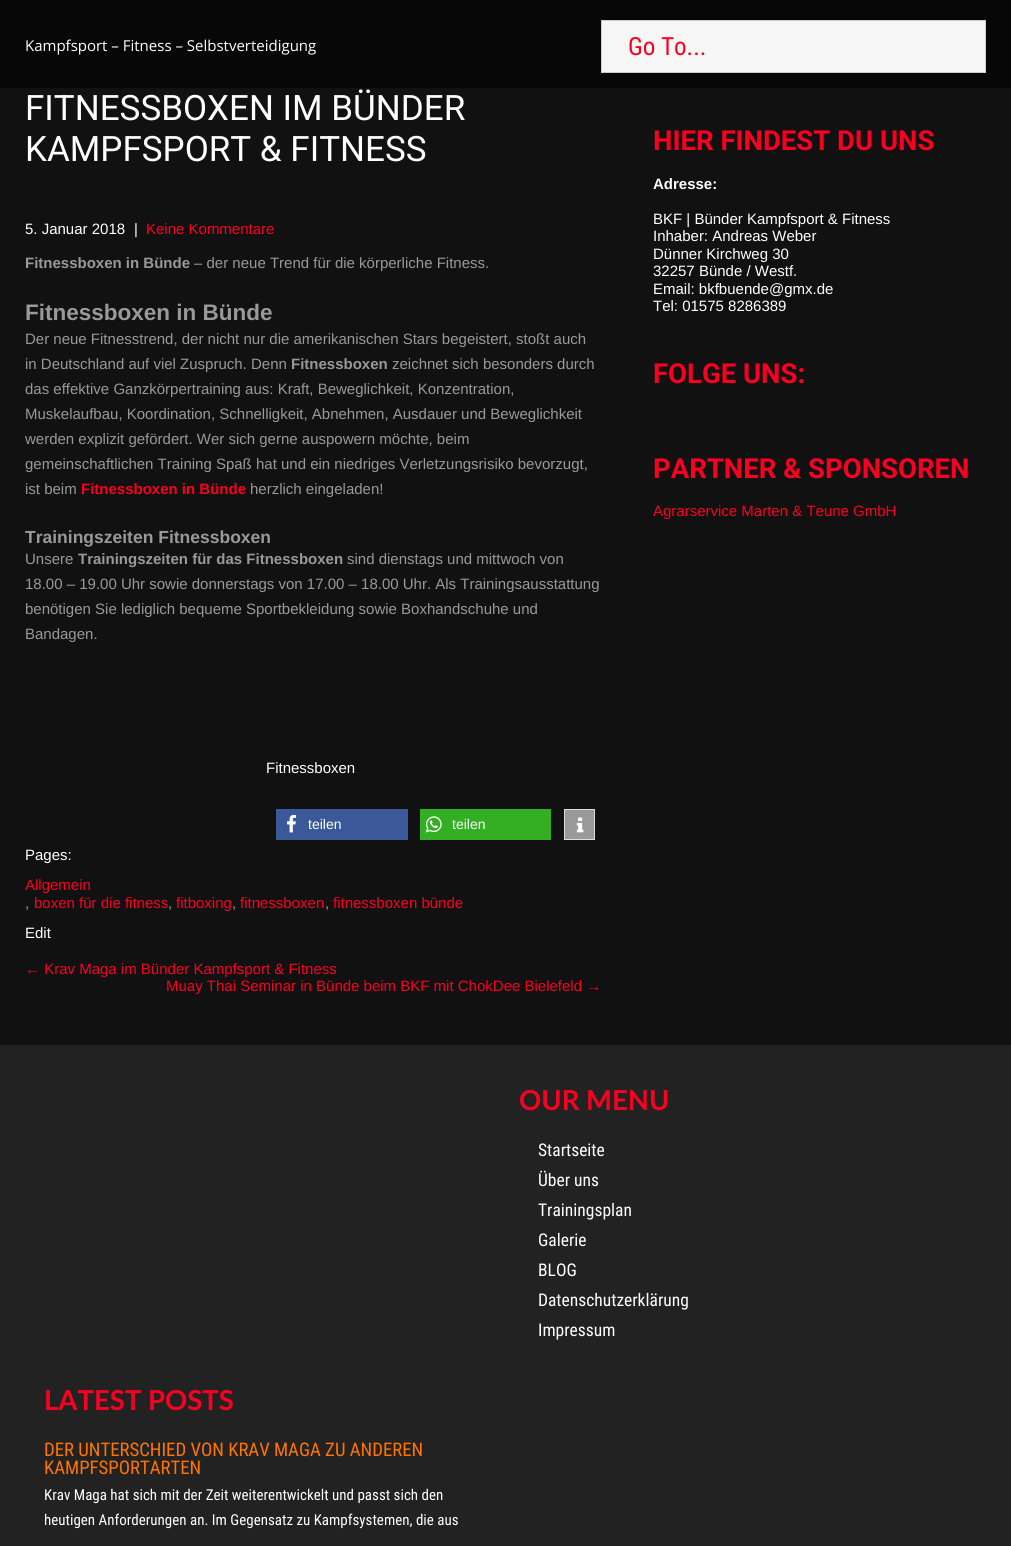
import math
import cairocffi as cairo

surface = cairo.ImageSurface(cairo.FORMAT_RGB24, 1011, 1546)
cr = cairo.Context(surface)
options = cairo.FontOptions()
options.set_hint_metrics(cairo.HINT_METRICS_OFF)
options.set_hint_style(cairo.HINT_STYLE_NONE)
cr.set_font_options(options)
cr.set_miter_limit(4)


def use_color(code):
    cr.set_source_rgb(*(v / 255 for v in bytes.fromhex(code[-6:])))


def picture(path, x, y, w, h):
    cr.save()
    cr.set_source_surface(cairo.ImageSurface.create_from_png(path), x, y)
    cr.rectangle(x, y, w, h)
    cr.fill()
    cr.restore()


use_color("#111111")
cr.paint()
use_color("#070707")
cr.rectangle(0, 0, 1011, 88)
cr.fill()
cr.select_font_face("Open Sans")
cr.set_font_size(15)
use_color("#ffffff")
cr.move_to(25, 51)
cr.show_text("Kampfsport – Fitness – Selbstverteidigung")
use_color("#f6f6f6")
cr.rectangle(601.5, 20.5, 384, 52)
cr.fill_preserve()
use_color("#cccccc")
cr.set_line_width(1)
cr.stroke()
cr.select_font_face("Roboto Condensed")
cr.set_font_size(25)
use_color("#f90021")
cr.move_to(628, 55)
cr.show_text("Go To...")
cr.select_font_face("Roboto")
cr.set_font_size(35)
use_color("#ffffff")
cr.move_to(25, 120)
cr.show_text("FITNESSBOXEN IM BÜNDER")
cr.move_to(25, 161)
cr.show_text("KAMPFSPORT & FITNESS")
cr.select_font_face("Liberation Sans")
cr.set_font_size(15)
cr.move_to(25, 234)
cr.show_text("5. Januar 2018")
cr.move_to(134, 234)
cr.show_text("|")
use_color("#f90021")
cr.move_to(146, 234)
cr.show_text("Keine Kommentare")
cr.select_font_face("Liberation Sans", cairo.FONT_SLANT_NORMAL, cairo.FONT_WEIGHT_BOLD)
use_color("#999999")
cr.move_to(25, 268)
cr.show_text("Fitnessboxen in Bünde")
cr.select_font_face("Liberation Sans")
cr.move_to(194, 268)
cr.show_text("– der neue Trend für die körperliche Fitness.")
cr.select_font_face("Liberation Sans", cairo.FONT_SLANT_NORMAL, cairo.FONT_WEIGHT_BOLD)
cr.set_font_size(22.5)
cr.move_to(25, 320)
cr.show_text("Fitnessboxen in Bünde")
cr.select_font_face("Liberation Sans")
cr.set_font_size(15)
cr.move_to(25, 344)
cr.show_text("Der neue Fitnesstrend, der nicht nur die amerikanischen Stars begeistert, stoßt auch")
cr.move_to(25, 369)
cr.show_text("in Deutschland auf viel Zuspruch. Denn")
cr.select_font_face("Liberation Sans", cairo.FONT_SLANT_NORMAL, cairo.FONT_WEIGHT_BOLD)
cr.move_to(291, 369)
cr.show_text("Fitnessboxen")
cr.select_font_face("Liberation Sans")
cr.move_to(392, 369)
cr.show_text("zeichnet sich besonders durch")
cr.move_to(25, 394)
cr.show_text("das effektive Ganzkörpertraining aus: Kraft, Beweglichkeit, Konzentration,")
cr.move_to(25, 419)
cr.show_text("Muskelaufbau, Koordination, Schnelligkeit, Abnehmen, Ausdauer und Beweglichkeit")
cr.move_to(25, 444)
cr.show_text("werden explizit gefördert. Wer sich gerne auspowern möchte, beim")
cr.move_to(25, 469)
cr.show_text("gemeinschaftlichen Training Spaß hat und ein niedriges Verletzungsrisiko bevorzugt,")
cr.move_to(25, 494)
cr.show_text("ist beim")
cr.select_font_face("Liberation Sans", cairo.FONT_SLANT_NORMAL, cairo.FONT_WEIGHT_BOLD)
use_color("#f90021")
cr.move_to(81, 494)
cr.show_text("Fitnessboxen in Bünde")
cr.select_font_face("Liberation Sans")
use_color("#999999")
cr.move_to(250, 494)
cr.show_text("herzlich eingeladen!")
cr.select_font_face("Liberation Sans", cairo.FONT_SLANT_NORMAL, cairo.FONT_WEIGHT_BOLD)
cr.set_font_size(17.5)
cr.move_to(25, 543)
cr.show_text("Trainingszeiten Fitnessboxen")
cr.select_font_face("Liberation Sans")
cr.set_font_size(15)
cr.move_to(25, 564)
cr.show_text("Unsere")
cr.select_font_face("Liberation Sans", cairo.FONT_SLANT_NORMAL, cairo.FONT_WEIGHT_BOLD)
cr.move_to(78, 564)
cr.show_text("Trainingszeiten für das Fitnessboxen")
cr.select_font_face("Liberation Sans")
cr.move_to(347, 564)
cr.show_text("sind dienstags und mittwoch von")
cr.move_to(25, 589)
cr.show_text("18.00 – 19.00 Uhr sowie donnerstags von 17.00 – 18.00 Uhr. Als Trainingsausstattung")
cr.move_to(25, 614)
cr.show_text("benötigen Sie lediglich bequeme Sportbekleidung sowie Boxhandschuhe und")
cr.move_to(25, 639)
cr.show_text("Bandagen.")
use_color("#ffffff")
cr.move_to(266, 773)
cr.show_text("Fitnessboxen")
use_color("#3b5998")
cr.rectangle(276, 809, 132, 31)
cr.fill()
picture("img1.png", 286, 814, 10, 19)
cr.set_font_size(14)
use_color("#ffffff")
cr.move_to(308, 829)
cr.show_text("teilen")
use_color("#34af23")
cr.rectangle(420, 809, 131, 31)
cr.fill()
picture("img2.png", 425, 816, 17, 17)
use_color("#ffffff")
cr.move_to(452, 829)
cr.show_text("teilen")
use_color("#999999")
cr.rectangle(564.5, 809.5, 30, 30)
cr.fill_preserve()
use_color("#dddddd")
cr.stroke()
picture("img3.png", 576, 817, 8, 16)
cr.set_font_size(15)
use_color("#ffffff")
cr.move_to(25, 860)
cr.show_text("Pages:")
use_color("#f90021")
cr.move_to(25, 890)
cr.show_text("Allgemein")
use_color("#999999")
cr.move_to(25, 908)
cr.show_text(",")
use_color("#f90021")
cr.move_to(34, 908)
cr.show_text("boxen für die fitness")
use_color("#999999")
cr.move_to(168, 908)
cr.show_text(",")
use_color("#f90021")
cr.move_to(176, 908)
cr.show_text("fitboxing")
use_color("#999999")
cr.move_to(232, 908)
cr.show_text(",")
use_color("#f90021")
cr.move_to(240, 908)
cr.show_text("fitnessboxen")
use_color("#999999")
cr.move_to(325, 908)
cr.show_text(",")
use_color("#f90021")
cr.move_to(333, 908)
cr.show_text("fitnessboxen bünde")
use_color("#ffffff")
cr.move_to(25, 938)
cr.show_text("Edit")
use_color("#f90021")
cr.move_to(25, 974)
cr.show_text("← Krav Maga im Bünder Kampfsport & Fitness")
cr.move_to(166, 991)
cr.show_text("Muay Thai Seminar in Bünde beim BKF mit ChokDee Bielefeld →")
cr.select_font_face("Roboto", cairo.FONT_SLANT_NORMAL, cairo.FONT_WEIGHT_BOLD)
cr.set_font_size(27.5)
cr.move_to(653, 150)
cr.show_text("HIER FINDEST DU UNS")
cr.select_font_face("Liberation Sans", cairo.FONT_SLANT_NORMAL, cairo.FONT_WEIGHT_BOLD)
cr.set_font_size(15)
use_color("#ffffff")
cr.move_to(653, 189)
cr.show_text("Adresse:")
cr.select_font_face("Liberation Sans")
cr.move_to(653, 224)
cr.show_text("BKF | Bünder Kampfsport & Fitness")
cr.move_to(653, 241)
cr.show_text("Inhaber: Andreas Weber")
cr.move_to(653, 259)
cr.show_text("Dünner Kirchweg 30")
cr.move_to(653, 276)
cr.show_text("32257 Bünde / Westf.")
cr.move_to(653, 294)
cr.show_text("Email: bkfbuende@gmx.de")
cr.move_to(653, 311)
cr.show_text("Tel: 01575 8286389")
cr.select_font_face("Roboto", cairo.FONT_SLANT_NORMAL, cairo.FONT_WEIGHT_BOLD)
cr.set_font_size(27.5)
use_color("#f90021")
cr.move_to(653, 383)
cr.show_text("FOLGE UNS:")
cr.move_to(653, 478)
cr.show_text("PARTNER & SPONSOREN")
cr.select_font_face("Liberation Sans")
cr.set_font_size(15)
cr.move_to(653, 516)
cr.show_text("Agrarservice Marten & Teune GmbH")
use_color("#222222")
cr.rectangle(0, 1045, 1011, 501)
cr.fill()
cr.select_font_face("Lato", cairo.FONT_SLANT_NORMAL, cairo.FONT_WEIGHT_BOLD)
cr.set_font_size(27.5)
use_color("#f90021")
cr.move_to(519, 1110)
cr.show_text("OUR MENU")
cr.select_font_face("Roboto Condensed")
cr.set_font_size(17.5)
use_color("#ffffff")
cr.move_to(538, 1156)
cr.show_text("Startseite")
cr.move_to(538, 1186)
cr.show_text("Über uns")
cr.move_to(538, 1216)
cr.show_text("Trainingsplan")
cr.move_to(538, 1246)
cr.show_text("Galerie")
cr.move_to(538, 1276)
cr.show_text("BLOG")
cr.move_to(538, 1306)
cr.show_text("Datenschutzerklärung")
cr.move_to(538, 1336)
cr.show_text("Impressum")
cr.select_font_face("Lato", cairo.FONT_SLANT_NORMAL, cairo.FONT_WEIGHT_BOLD)
cr.set_font_size(27.5)
use_color("#f90021")
cr.move_to(44, 1410)
cr.show_text("LATEST POSTS")
cr.select_font_face("Roboto Condensed")
cr.set_font_size(18.75)
use_color("#ff7400")
cr.move_to(44, 1456)
cr.show_text("DER UNTERSCHIED VON KRAV MAGA ZU ANDEREN")
cr.move_to(44, 1474)
cr.show_text("KAMPFSPORTARTEN")
cr.set_font_size(15)
use_color("#ffffff")
cr.move_to(44, 1500)
cr.show_text("Krav Maga hat sich mit der Zeit weiterentwickelt und passt sich den")
cr.move_to(44, 1525)
cr.show_text("heutigen Anforderungen an. Im Gegensatz zu Kampfsystemen, die aus")
surface.write_to_png("result.png")
